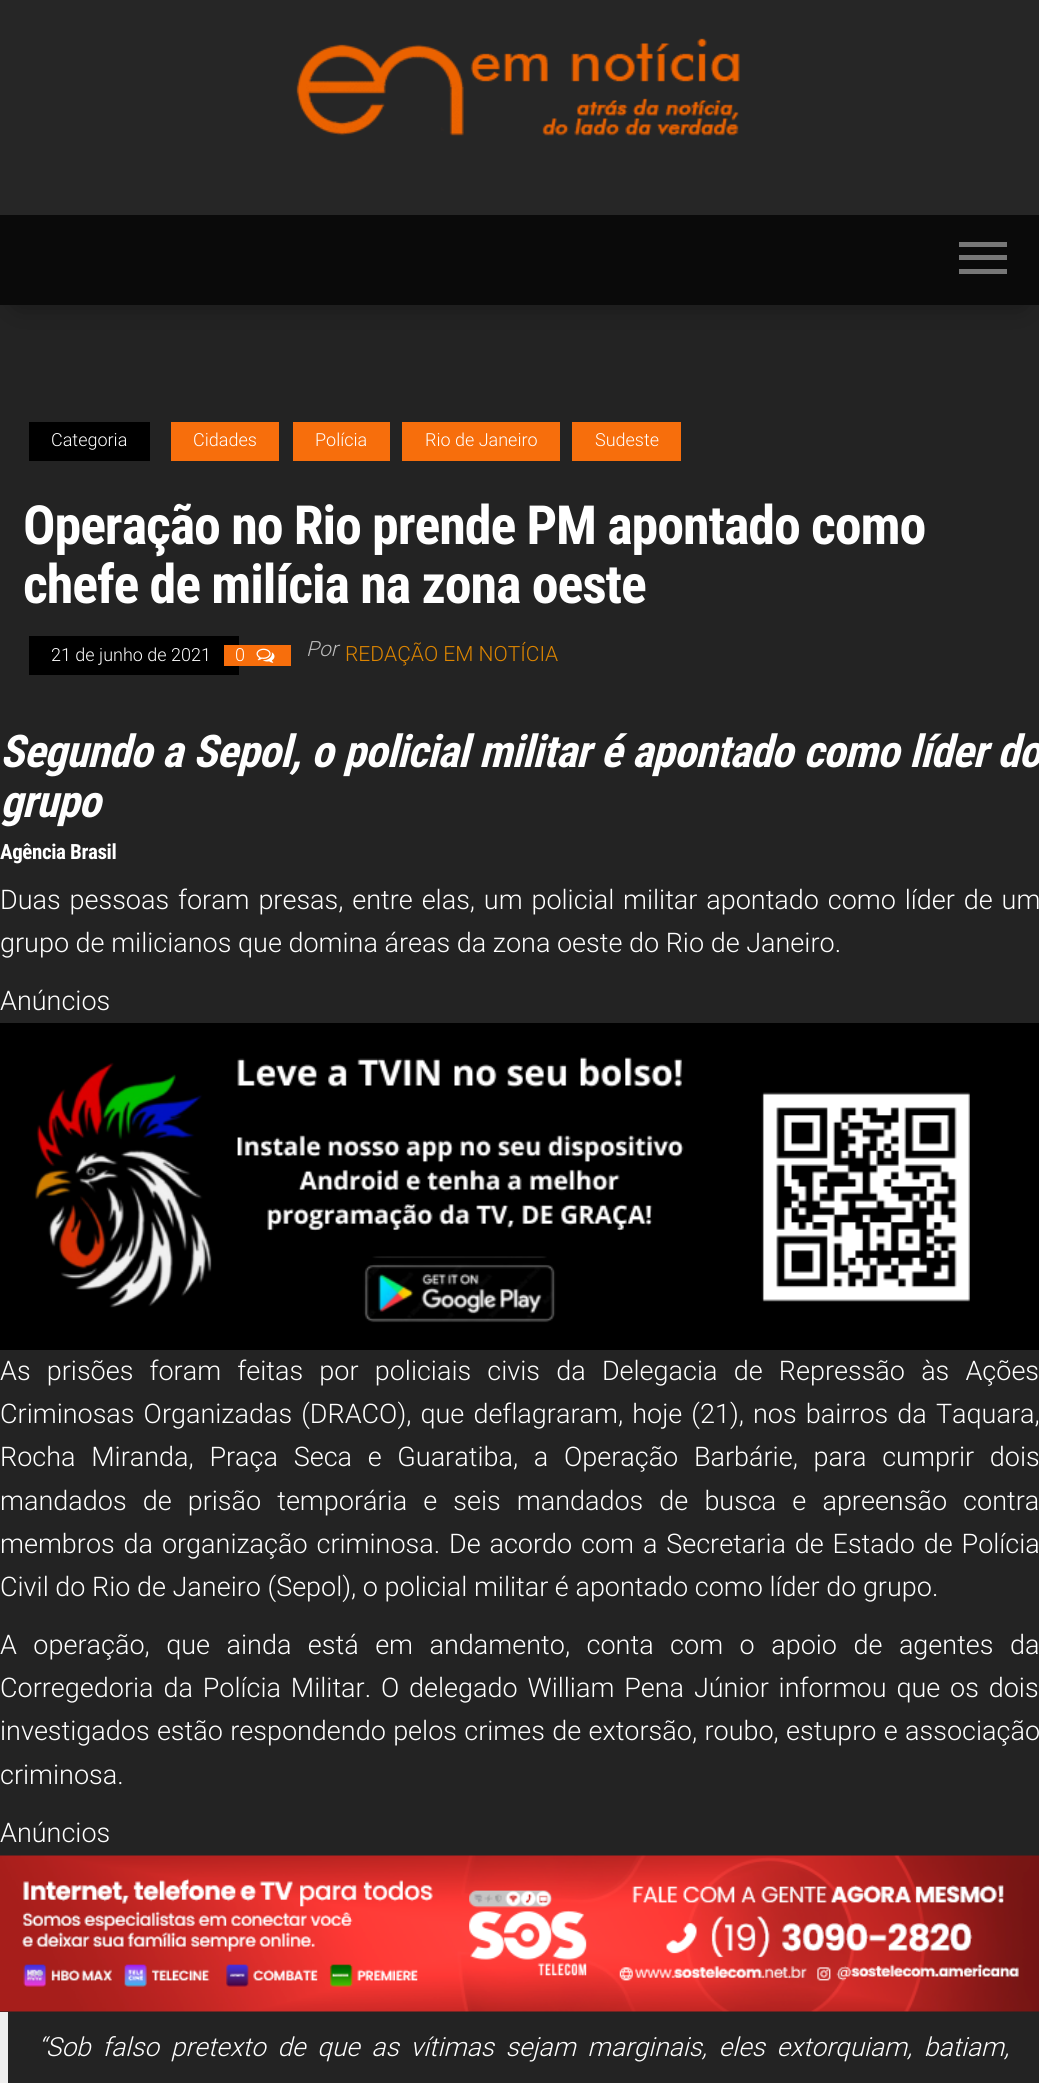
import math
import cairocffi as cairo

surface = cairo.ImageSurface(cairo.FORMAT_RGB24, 1039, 2083)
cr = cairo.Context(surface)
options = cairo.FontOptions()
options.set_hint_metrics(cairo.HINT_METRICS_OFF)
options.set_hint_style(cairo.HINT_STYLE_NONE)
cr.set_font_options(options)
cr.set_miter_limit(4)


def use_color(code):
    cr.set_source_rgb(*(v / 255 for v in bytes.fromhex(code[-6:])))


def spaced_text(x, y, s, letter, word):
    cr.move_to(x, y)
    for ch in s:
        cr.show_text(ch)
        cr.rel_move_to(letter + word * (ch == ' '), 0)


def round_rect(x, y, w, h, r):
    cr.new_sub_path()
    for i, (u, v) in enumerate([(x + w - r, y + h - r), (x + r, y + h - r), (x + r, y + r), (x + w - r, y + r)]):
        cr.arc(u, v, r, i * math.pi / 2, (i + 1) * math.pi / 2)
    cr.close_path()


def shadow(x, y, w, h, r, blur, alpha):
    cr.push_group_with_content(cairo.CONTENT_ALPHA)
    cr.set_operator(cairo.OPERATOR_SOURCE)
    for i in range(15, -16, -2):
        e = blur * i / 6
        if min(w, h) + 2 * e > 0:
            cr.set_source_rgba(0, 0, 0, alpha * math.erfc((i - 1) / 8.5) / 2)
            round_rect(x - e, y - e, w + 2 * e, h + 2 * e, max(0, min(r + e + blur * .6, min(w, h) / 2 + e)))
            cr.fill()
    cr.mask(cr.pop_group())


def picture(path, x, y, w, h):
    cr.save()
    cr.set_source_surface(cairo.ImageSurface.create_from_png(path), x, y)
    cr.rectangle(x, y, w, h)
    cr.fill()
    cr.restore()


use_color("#232323")
cr.paint()
use_color("#262626")
cr.rectangle(0, 0, 1039, 215)
cr.fill()
picture("img1.png", 296, 38, 444, 98)
use_color("#000000")
shadow(18, 248, 1004, 54, 0, 15, 0.42)
use_color("#0a0a0a")
cr.rectangle(0, 215, 1039, 90)
cr.fill()
use_color("#777777")
cr.rectangle(959, 242, 48, 5)
cr.fill()
cr.rectangle(959, 255, 48, 5)
cr.fill()
cr.rectangle(959, 269, 48, 5)
cr.fill()
use_color("#000000")
cr.rectangle(29, 422, 121, 39)
cr.fill()
cr.select_font_face("Roboto Light")
cr.set_font_size(18)
use_color("#ffffff")
cr.move_to(51, 446)
cr.show_text("Categoria")
use_color("#f76e0c")
cr.rectangle(171, 422, 108, 39)
cr.fill()
use_color("#ffffff")
cr.move_to(193, 446)
cr.show_text("Cidades")
use_color("#f76e0c")
cr.rectangle(293, 422, 97, 39)
cr.fill()
use_color("#ffffff")
cr.move_to(315, 446)
cr.show_text("Polícia")
use_color("#f76e0c")
cr.rectangle(402, 422, 158, 39)
cr.fill()
use_color("#ffffff")
cr.move_to(425, 446)
cr.show_text("Rio de Janeiro")
use_color("#f76e0c")
cr.rectangle(572, 422, 109, 39)
cr.fill()
use_color("#ffffff")
cr.move_to(595, 446)
cr.show_text("Sudeste")
cr.select_font_face("Roboto Condensed", cairo.FONT_SLANT_NORMAL, cairo.FONT_WEIGHT_BOLD)
cr.set_font_size(54)
spaced_text(23, 544, "Operação no Rio prende PM apontado como", -1.1, 0)
spaced_text(23, 603, "chefe de milícia na zona oeste", -1.1, 0)
use_color("#000000")
cr.rectangle(29, 636, 210, 39)
cr.fill()
cr.select_font_face("Roboto Light")
cr.set_font_size(18)
use_color("#ffffff")
cr.move_to(51, 661)
cr.show_text("21 de junho de 2021")
use_color("#f76e0c")
cr.rectangle(224, 645, 67, 21)
cr.fill()
use_color("#ffffff")
cr.move_to(235, 661)
cr.show_text("0")
picture("img2.png", 256, 648, 19, 15)
cr.select_font_face("Roboto Light", cairo.FONT_SLANT_ITALIC)
cr.set_font_size(21)
use_color("#bdbdbd")
cr.move_to(306, 656)
cr.show_text("Por")
cr.select_font_face("Roboto Light")
use_color("#dd8500")
cr.move_to(345, 661)
cr.show_text("REDAÇÃO EM NOTÍCIA")
cr.select_font_face("Roboto Condensed", cairo.FONT_SLANT_ITALIC, cairo.FONT_WEIGHT_BOLD)
cr.set_font_size(45)
use_color("#ffffff")
spaced_text(0, 767, "Segundo a Sepol, o policial militar é apontado como líder do", -0.9, 1.25)
spaced_text(0, 817, "grupo", -0.9, 0)
cr.select_font_face("Roboto Condensed", cairo.FONT_SLANT_NORMAL, cairo.FONT_WEIGHT_BOLD)
cr.set_font_size(21)
spaced_text(0, 859, "Agência Brasil", -0.4, 0)
cr.select_font_face("Roboto Light")
cr.set_font_size(27)
spaced_text(0, 909, "Duas pessoas foram presas, entre elas, um policial militar apontado como líder de um", 0, 2.25)
cr.move_to(0, 952)
cr.show_text("grupo de milicianos que domina áreas da zona oeste do Rio de Janeiro.")
cr.move_to(0, 1010)
cr.show_text("Anúncios")
picture("img3.png", 0, 1023, 1039, 327)
spaced_text(0, 1380, "As prisões foram feitas por policiais civis da Delegacia de Repressão às Ações", 0, 9.6)
spaced_text(0, 1423, "Criminosas Organizadas (DRACO), que deflagraram, hoje (21), nos bairros da Taquara,", 0, 2.5)
spaced_text(0, 1466, "Rocha Miranda, Praça Seca e Guaratiba, a Operação Barbárie, para cumprir dois", 0, 9.1)
spaced_text(0, 1510, "mandados de prisão temporária e seis mandados de busca e apreensão contra", 0, 9.5)
spaced_text(0, 1553, "membros da organização criminosa. De acordo com a Secretaria de Estado de Polícia", 0, 2.25)
cr.move_to(0, 1596)
cr.show_text("Civil do Rio de Janeiro (Sepol), o policial militar é apontado como líder do grupo.")
spaced_text(0, 1654, "A operação, que ainda está em andamento, conta com o apoio de agentes da", 0, 9.9)
spaced_text(0, 1697, "Corregedoria da Polícia Militar. O delegado William Pena Júnior informou que os dois", 0, 3.25)
spaced_text(0, 1740, "investigados estão respondendo pelos crimes de extorsão, roubo, estupro e associação", 0, 0.75)
cr.move_to(0, 1784)
cr.show_text("criminosa.")
cr.move_to(0, 1842)
cr.show_text("Anúncios")
picture("img4.png", 0, 1855, 1039, 157)
use_color("#eeeeee")
cr.rectangle(0, 2012, 8, 71)
cr.fill()
cr.select_font_face("Roboto Light", cairo.FONT_SLANT_ITALIC)
cr.set_font_size(26.25)
use_color("#ffffff")
spaced_text(38, 2056, "“Sob falso pretexto de que as vítimas sejam marginais, eles extorquiam, batiam,", 0, 5.25)
surface.write_to_png("result.png")
